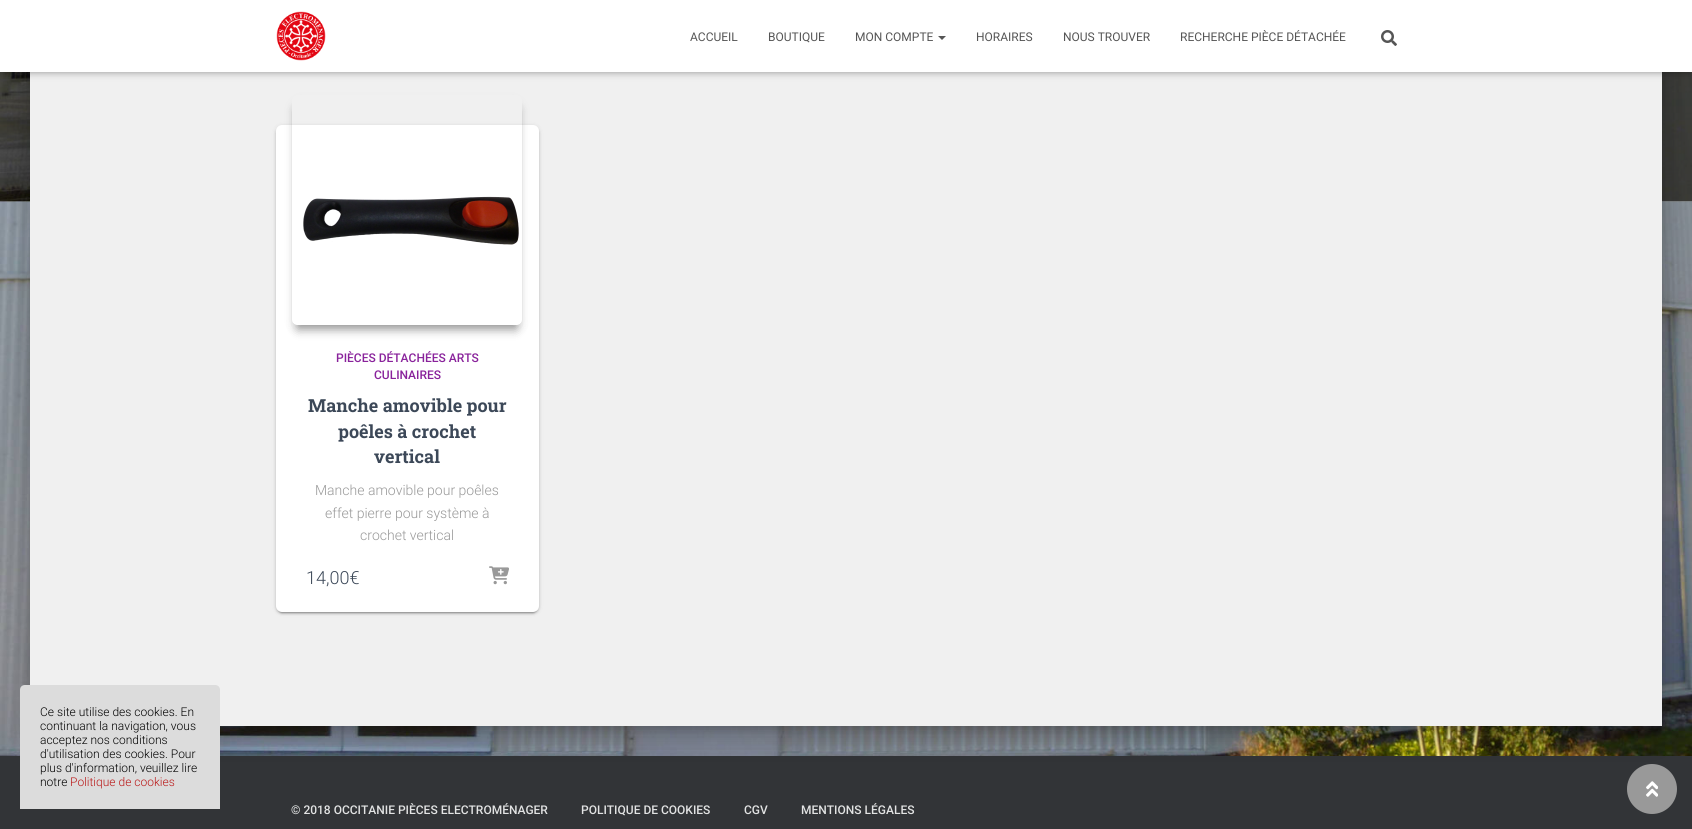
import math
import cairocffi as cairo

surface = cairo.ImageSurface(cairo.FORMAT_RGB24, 1692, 829)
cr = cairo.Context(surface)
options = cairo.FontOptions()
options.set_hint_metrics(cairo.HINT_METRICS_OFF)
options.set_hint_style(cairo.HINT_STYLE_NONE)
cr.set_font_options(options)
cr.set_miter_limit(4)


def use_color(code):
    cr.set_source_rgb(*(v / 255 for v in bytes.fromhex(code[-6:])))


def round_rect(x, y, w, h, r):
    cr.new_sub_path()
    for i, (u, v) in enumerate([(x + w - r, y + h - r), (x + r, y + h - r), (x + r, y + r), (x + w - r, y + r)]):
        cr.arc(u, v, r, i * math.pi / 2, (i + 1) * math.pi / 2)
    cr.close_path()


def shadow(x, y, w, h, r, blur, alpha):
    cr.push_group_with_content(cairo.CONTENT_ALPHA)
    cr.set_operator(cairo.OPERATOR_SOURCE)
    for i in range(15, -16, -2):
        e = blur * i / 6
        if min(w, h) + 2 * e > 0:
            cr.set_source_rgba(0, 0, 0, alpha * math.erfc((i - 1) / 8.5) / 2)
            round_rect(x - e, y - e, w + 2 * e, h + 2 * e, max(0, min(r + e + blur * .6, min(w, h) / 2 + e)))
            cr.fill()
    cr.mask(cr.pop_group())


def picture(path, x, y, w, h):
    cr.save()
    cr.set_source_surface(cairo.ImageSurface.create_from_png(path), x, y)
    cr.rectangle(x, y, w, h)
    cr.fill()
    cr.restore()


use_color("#ffffff")
cr.paint()
picture("img1.png", 0, 201, 1692, 555)
picture("img4.png", 0, 72, 1692, 130)
use_color("#000000")
shadow(35, 17, 1622, 712, 1, 5, 0.2)
use_color("#323437")
cr.rectangle(0, 756, 1692, 73)
cr.fill()
use_color("#000000")
shadow(25, 5, 1642, 732, 11, 15, 0.12)
shadow(28, 18, 1636, 726, 8, 12, 0.14)
use_color("#f0f0f0")
cr.rectangle(30, 72, 1632, 654)
cr.fill()
use_color("#dcdcdc")
cr.new_path()
cr.move_to(25, 685)
cr.line_to(215, 685)
cr.curve_to(218, 685, 220, 687, 220, 690)
cr.line_to(220, 809)
cr.line_to(20, 809)
cr.line_to(20, 690)
cr.curve_to(20, 687, 22, 685, 25, 685)
cr.close_path()
cr.fill()
cr.select_font_face("Roboto Light")
cr.set_font_size(12)
use_color("#000000")
cr.move_to(40, 716)
cr.show_text("Ce site utilise des cookies. En")
cr.move_to(40, 730)
cr.show_text("continuant la navigation, vous")
cr.move_to(40, 744)
cr.show_text("acceptez nos conditions")
cr.move_to(40, 758)
cr.show_text("d'utilisation des cookies. Pour")
cr.move_to(40, 772)
cr.show_text("plus d'information, veuillez lire")
cr.move_to(40, 786)
cr.show_text("notre")
use_color("#ba1818")
cr.move_to(70, 786)
cr.show_text("Politique de cookies")
use_color("#000000")
shadow(2, 6, 1688, 68, 0, 2.5, 0.1)
shadow(0, 1, 1692, 72, 0, 5, 0.12)
shadow(6, 7, 1680, 60, 0, 5, 0.42)
use_color("#ffffff")
cr.rectangle(0, 0, 1692, 72)
cr.fill()
picture("img2.png", 276, 11, 50, 50)
cr.select_font_face("Roboto")
use_color("#555555")
cr.move_to(690, 41)
cr.show_text("ACCUEIL")
cr.move_to(768, 41)
cr.show_text("BOUTIQUE")
cr.move_to(855, 41)
cr.show_text("MON COMPTE")
cr.new_path()
cr.move_to(938, 36)
cr.line_to(946, 36)
cr.line_to(942, 40)
cr.close_path()
cr.fill()
cr.move_to(976, 41)
cr.show_text("HORAIRES")
cr.move_to(1063, 41)
cr.show_text("NOUS TROUVER")
cr.move_to(1180, 41)
cr.show_text("RECHERCHE PIÈCE DÉTACHÉE")
picture("img3.png", 1381, 30, 16, 16)
use_color("#000000")
shadow(276, 126, 263, 487, 6, 2.5, 0.12)
shadow(278, 130, 259, 483, 4, 0.5, 0.2)
shadow(276, 127, 263, 487, 6, 1, 0.14)
use_color("#ffffff")
round_rect(276, 125, 263, 487, 6)
cr.fill()
cr.save()
cr.set_fill_rule(cairo.FILL_RULE_EVEN_ODD)
cr.new_path()
cr.move_to(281, 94)
cr.line_to(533, 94)
cr.line_to(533, 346)
cr.line_to(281, 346)
cr.close_path()
cr.move_to(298, 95)
cr.line_to(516, 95)
cr.curve_to(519.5, 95, 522, 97.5, 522, 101)
cr.line_to(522, 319)
cr.curve_to(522, 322.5, 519.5, 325, 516, 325)
cr.line_to(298, 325)
cr.curve_to(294.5, 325, 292, 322.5, 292, 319)
cr.line_to(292, 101)
cr.curve_to(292, 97.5, 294.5, 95, 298, 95)
cr.close_path()
cr.clip()
use_color("#000000")
shadow(297, 110, 220, 220, 1, 5, 0.2)
cr.restore()
cr.save()
cr.set_fill_rule(cairo.FILL_RULE_EVEN_ODD)
cr.new_path()
cr.move_to(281, 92)
cr.line_to(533, 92)
cr.line_to(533, 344)
cr.line_to(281, 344)
cr.close_path()
cr.move_to(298, 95)
cr.line_to(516, 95)
cr.curve_to(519.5, 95, 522, 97.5, 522, 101)
cr.line_to(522, 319)
cr.curve_to(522, 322.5, 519.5, 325, 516, 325)
cr.line_to(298, 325)
cr.curve_to(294.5, 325, 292, 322.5, 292, 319)
cr.line_to(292, 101)
cr.curve_to(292, 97.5, 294.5, 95, 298, 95)
cr.close_path()
cr.clip()
use_color("#000000")
shadow(297, 108, 220, 220, 1, 5, 0.2)
cr.restore()
cr.save()
cr.set_fill_rule(cairo.FILL_RULE_EVEN_ODD)
cr.new_path()
cr.move_to(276, 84)
cr.line_to(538, 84)
cr.line_to(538, 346)
cr.line_to(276, 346)
cr.close_path()
cr.move_to(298, 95)
cr.line_to(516, 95)
cr.curve_to(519.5, 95, 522, 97.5, 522, 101)
cr.line_to(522, 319)
cr.curve_to(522, 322.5, 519.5, 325, 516, 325)
cr.line_to(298, 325)
cr.curve_to(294.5, 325, 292, 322.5, 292, 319)
cr.line_to(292, 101)
cr.curve_to(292, 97.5, 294.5, 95, 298, 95)
cr.close_path()
cr.clip()
use_color("#000000")
shadow(300, 108, 214, 214, 0, 7.5, 0.24)
cr.restore()
picture("img5.png", 303, 196, 216, 49)
cr.select_font_face("Roboto Medium")
use_color("#89229b")
cr.move_to(336, 362)
cr.show_text("PIÈCES DÉTACHÉES ARTS")
cr.move_to(374, 379)
cr.show_text("CULINAIRES")
cr.select_font_face("Roboto Slab", cairo.FONT_SLANT_NORMAL, cairo.FONT_WEIGHT_BOLD)
cr.set_font_size(18)
use_color("#3c4858")
cr.move_to(308, 412)
cr.show_text("Manche amovible pour")
cr.move_to(338, 438)
cr.show_text("poêles à crochet")
cr.move_to(374, 463)
cr.show_text("vertical")
cr.select_font_face("Roboto Light")
cr.set_font_size(14)
use_color("#999999")
cr.move_to(315, 495)
cr.show_text("Manche amovible pour poêles")
cr.move_to(325, 518)
cr.show_text("effet pierre pour système à")
cr.move_to(360, 540)
cr.show_text("crochet vertical")
cr.set_font_size(18)
use_color("#3c4858")
cr.move_to(306, 584)
cr.show_text("14,00€")
picture("img6.png", 489, 566, 20, 19)
cr.select_font_face("Roboto Medium")
cr.set_font_size(12)
use_color("#e2e3e3")
cr.move_to(291, 814)
cr.show_text("© 2018 OCCITANIE PIÈCES ELECTROMÉNAGER")
cr.move_to(581, 814)
cr.show_text("POLITIQUE DE COOKIES")
cr.move_to(744, 814)
cr.show_text("CGV")
cr.move_to(801, 814)
cr.show_text("MENTIONS LÉGALES")
use_color("#999999")
cr.new_path()
cr.arc(1652, 789, 25, 0, 2 * math.pi)
cr.fill()
picture("img7.png", 1646, 781, 12, 16)
surface.write_to_png("result.png")
